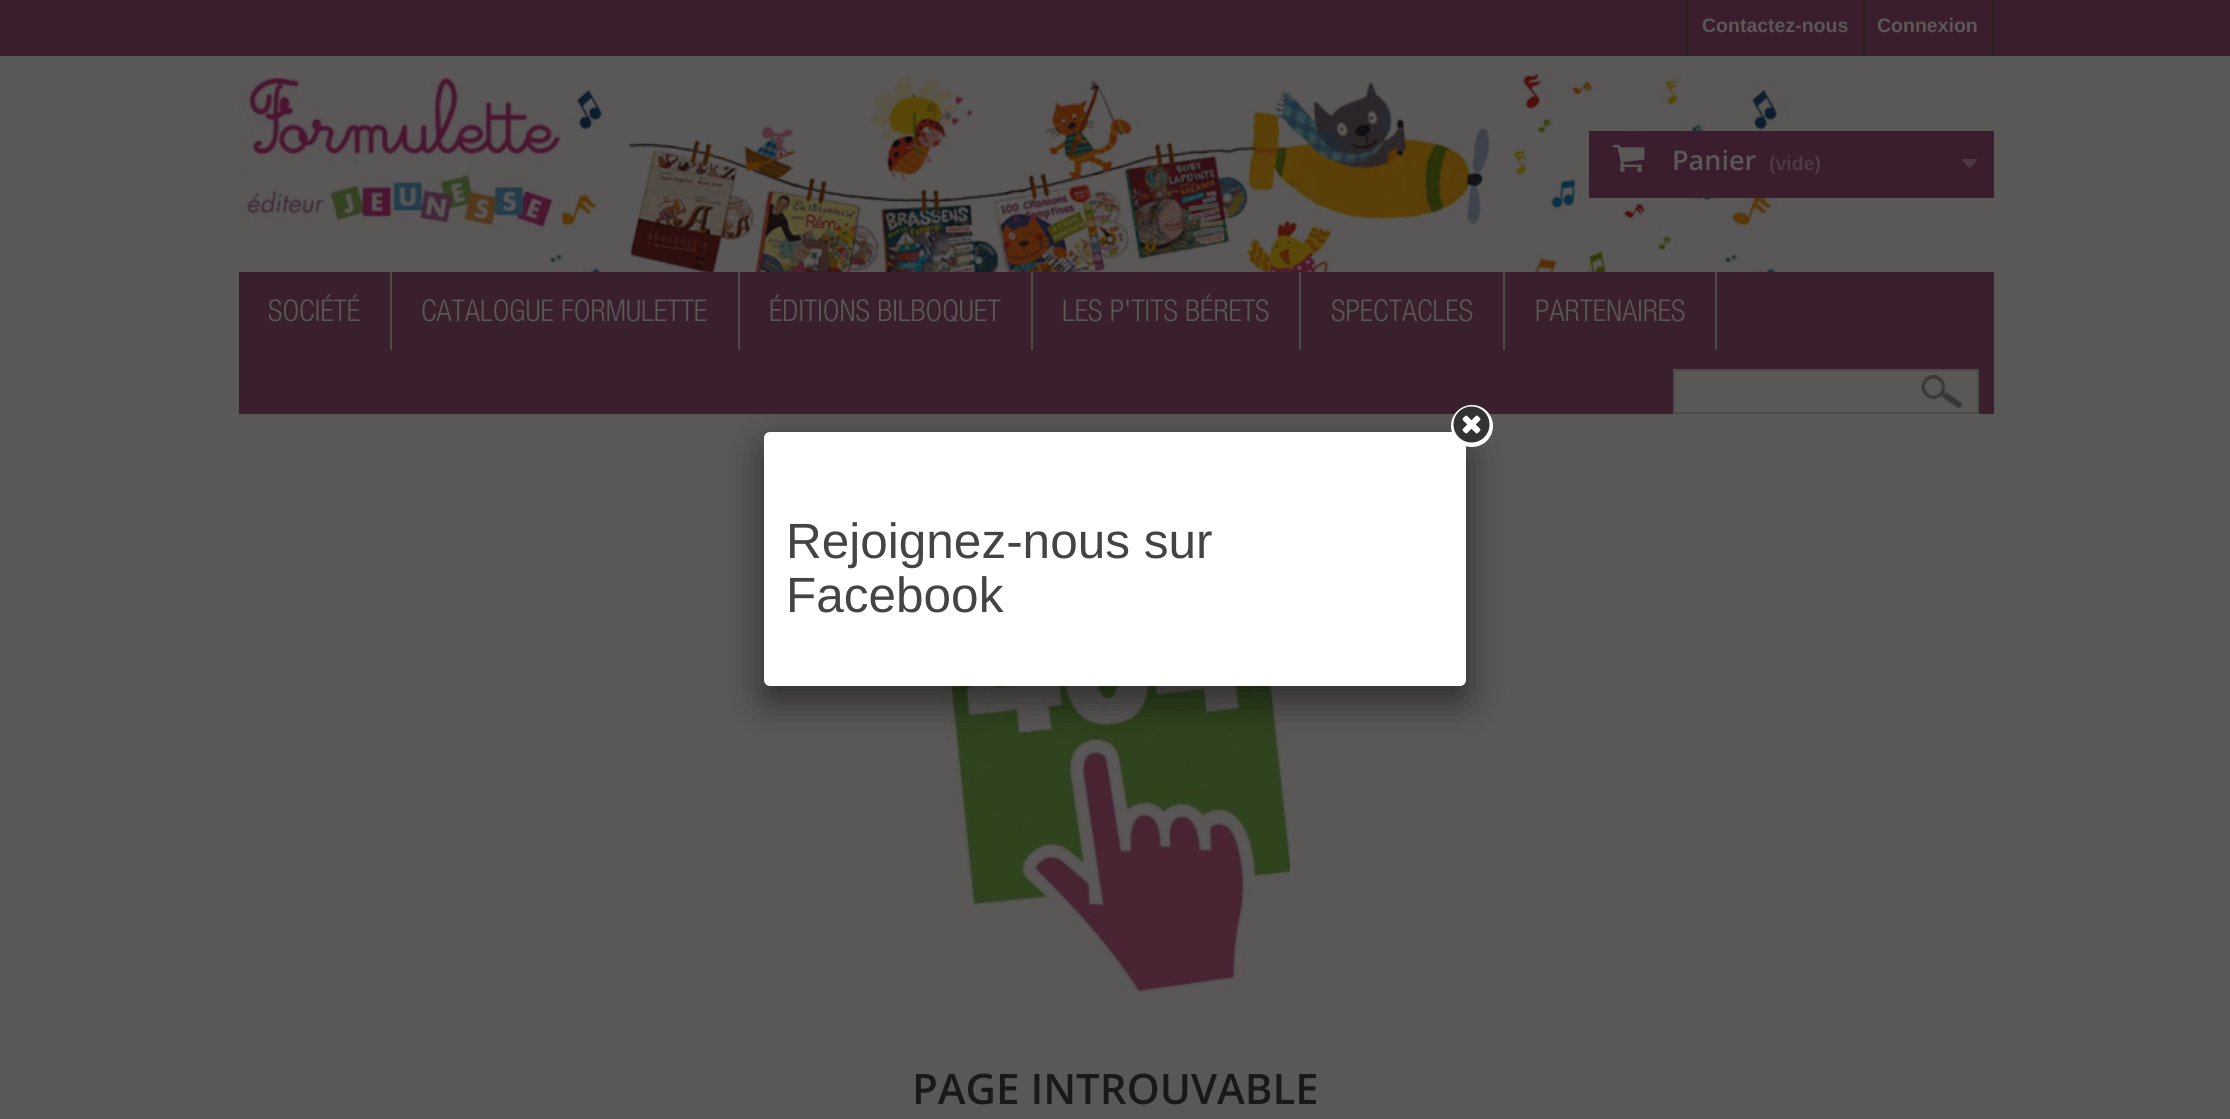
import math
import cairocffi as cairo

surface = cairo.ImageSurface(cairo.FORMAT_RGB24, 2230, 1119)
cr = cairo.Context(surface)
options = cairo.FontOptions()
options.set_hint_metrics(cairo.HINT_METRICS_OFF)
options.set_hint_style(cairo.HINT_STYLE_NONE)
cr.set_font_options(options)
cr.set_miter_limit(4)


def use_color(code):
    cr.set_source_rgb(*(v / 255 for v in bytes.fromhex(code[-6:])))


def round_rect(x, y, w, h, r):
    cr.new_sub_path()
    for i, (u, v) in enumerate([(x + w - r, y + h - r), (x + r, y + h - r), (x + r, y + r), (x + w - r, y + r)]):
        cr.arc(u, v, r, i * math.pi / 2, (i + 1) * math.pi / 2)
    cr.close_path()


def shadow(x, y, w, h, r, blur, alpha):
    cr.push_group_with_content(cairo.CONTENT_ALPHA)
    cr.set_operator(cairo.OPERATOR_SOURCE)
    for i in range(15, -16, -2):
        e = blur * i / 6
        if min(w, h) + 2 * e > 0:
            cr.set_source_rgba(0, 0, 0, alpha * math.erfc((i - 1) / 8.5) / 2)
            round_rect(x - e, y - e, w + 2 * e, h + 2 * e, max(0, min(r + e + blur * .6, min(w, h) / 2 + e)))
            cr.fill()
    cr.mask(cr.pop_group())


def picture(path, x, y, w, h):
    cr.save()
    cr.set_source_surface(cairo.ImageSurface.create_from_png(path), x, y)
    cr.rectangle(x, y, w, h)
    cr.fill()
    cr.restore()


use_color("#5a5757")
cr.paint()
use_color("#3a1e2d")
cr.rectangle(0, 0, 2230, 56)
cr.fill()
use_color("#242121")
cr.rectangle(1686, 0, 2, 56)
cr.fill()
cr.select_font_face("Liberation Sans", cairo.FONT_SLANT_NORMAL, cairo.FONT_WEIGHT_BOLD)
cr.set_font_size(19.5)
use_color("#5a5757")
cr.move_to(1702, 32)
cr.show_text("Contactez-nous")
use_color("#242121")
cr.rectangle(1992, 0, 2, 56)
cr.fill()
cr.rectangle(1863, 0, 2, 56)
cr.fill()
use_color("#5a5757")
cr.move_to(1877, 32)
cr.show_text("Connexion")
picture("img1.png", 497, 70, 1295, 202)
picture("img2.png", 238, 78, 325, 156)
use_color("#3a1e2d")
cr.rectangle(1589, 131, 405, 67)
cr.fill()
picture("img3.png", 1612, 144, 33, 28)
cr.select_font_face("Open Sans SemiBold")
cr.set_font_size(27)
use_color("#5a5757")
cr.move_to(1672, 170)
cr.show_text("Panier")
cr.select_font_face("Liberation Sans", cairo.FONT_SLANT_NORMAL, cairo.FONT_WEIGHT_BOLD)
cr.set_font_size(19.5)
use_color("#4e3844")
cr.move_to(1769, 170)
cr.show_text("(vide)")
picture("img4.png", 1962, 159, 16, 9)
use_color("#3a1f2d")
cr.rectangle(239, 272, 1755, 142)
cr.fill()
use_color("#4d4a4a")
cr.rectangle(390, 272, 2, 78)
cr.fill()
cr.select_font_face("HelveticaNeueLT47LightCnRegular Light")
cr.set_font_size(30)
use_color("#5a5757")
cr.move_to(268, 321)
cr.show_text("SOCIÉTÉ")
use_color("#4d4a4a")
cr.rectangle(738, 272, 2, 78)
cr.fill()
use_color("#5a5757")
cr.move_to(421, 321)
cr.show_text("CATALOGUE FORMULETTE")
use_color("#4d4a4a")
cr.rectangle(1031, 272, 2, 78)
cr.fill()
use_color("#5a5757")
cr.move_to(769, 321)
cr.show_text("ÉDITIONS BILBOQUET")
use_color("#4d4a4a")
cr.rectangle(1299, 272, 2, 78)
cr.fill()
use_color("#5a5757")
cr.move_to(1062, 321)
cr.show_text("LES P'TITS BÉRETS")
use_color("#4d4a4a")
cr.rectangle(1503, 272, 2, 78)
cr.fill()
use_color("#5a5757")
cr.move_to(1331, 321)
cr.show_text("SPECTACLES")
use_color("#4d4a4a")
cr.rectangle(1715, 272, 2, 78)
cr.fill()
use_color("#5a5757")
cr.move_to(1535, 321)
cr.show_text("PARTENAIRES")
cr.rectangle(1675, 371, 302, 41)
cr.fill()
picture("img5.png", 1921, 375, 42, 33)
cr.rectangle(1674, 370, 304, 43)
use_color("#4d4a4a")
cr.stroke()
picture("img6.png", 940, 686, 350, 309)
cr.select_font_face("Open Sans SemiBold")
cr.set_font_size(42)
use_color("#1b1818")
cr.move_to(912, 1104)
cr.show_text("PAGE INTROUVABLE")
use_color("#000000")
shadow(764, 447, 702, 254, 6, 19, 0.5)
use_color("#ffffff")
round_rect(764, 432, 702, 254, 6)
cr.fill()
cr.arc(1472, 426, 21, 0, 2 * math.pi)
cr.fill()
picture("img7.png", 1453, 406, 37, 37)
cr.select_font_face("Liberation Sans")
cr.set_font_size(49.5)
use_color("#444444")
cr.move_to(786, 558)
cr.show_text("Rejoignez-nous sur")
cr.move_to(786, 612)
cr.show_text("Facebook")
surface.write_to_png("result.png")
